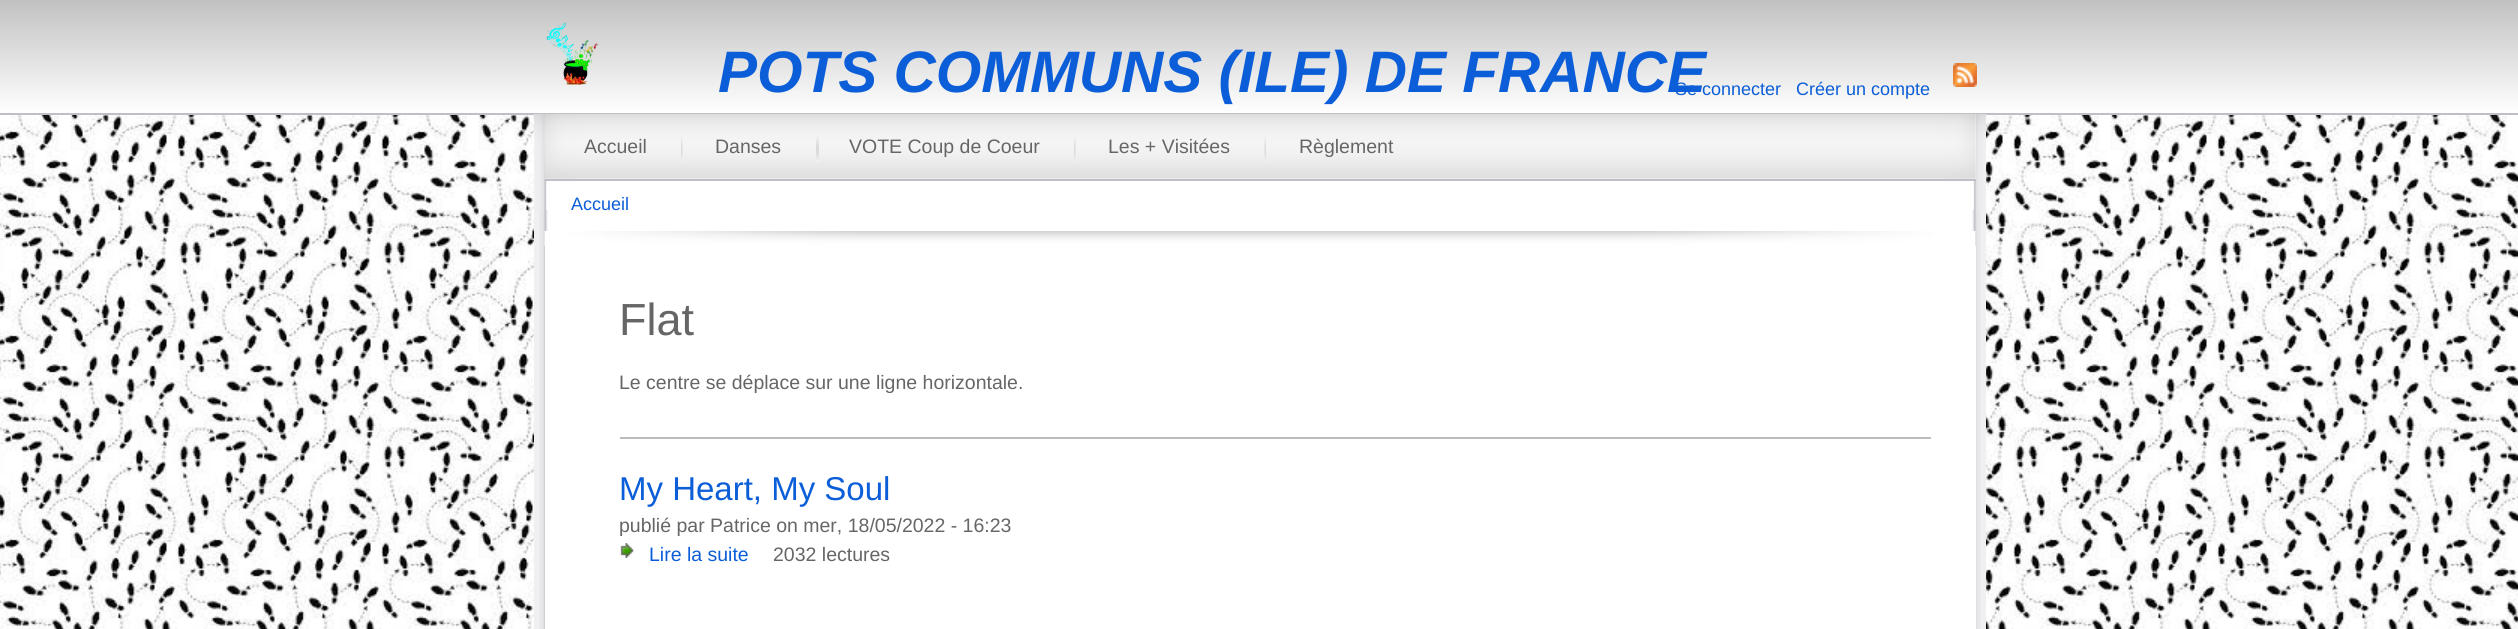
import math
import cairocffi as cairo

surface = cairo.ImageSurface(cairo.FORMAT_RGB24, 2518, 629)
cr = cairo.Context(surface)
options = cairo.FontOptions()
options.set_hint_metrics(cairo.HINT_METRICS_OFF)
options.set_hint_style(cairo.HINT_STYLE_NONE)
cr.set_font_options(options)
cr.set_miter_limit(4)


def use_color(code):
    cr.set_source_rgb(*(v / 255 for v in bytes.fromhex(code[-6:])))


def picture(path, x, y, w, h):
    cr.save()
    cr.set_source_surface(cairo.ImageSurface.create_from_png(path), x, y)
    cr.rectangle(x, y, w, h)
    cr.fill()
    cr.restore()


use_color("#ffffff")
cr.paint()
picture("img1.png", 0, 0, 2518, 113)
use_color("#bfbfc6")
cr.rectangle(0, 113, 2518, 2)
cr.fill()
picture("img2.png", 546, 22, 53, 63)
cr.select_font_face("Liberation Sans", cairo.FONT_SLANT_ITALIC, cairo.FONT_WEIGHT_BOLD)
cr.set_font_size(58.5)
use_color("#0b5ed8")
cr.move_to(718, 92)
cr.show_text("POTS COMMUNS (ILE) DE FRANCE")
picture("img3.png", 1953, 63, 24, 24)
cr.select_font_face("Liberation Sans")
cr.set_font_size(18)
cr.move_to(1675, 95)
cr.show_text("Se connecter")
cr.move_to(1796, 95)
cr.show_text("Créer un compte")
picture("img4.png", 0, 115, 2518, 514)
use_color("#f0f0f2")
cr.rectangle(534, 210, 1452, 419)
cr.fill()
picture("img5.png", 539, 210, 1442, 419)
picture("img6.png", 534, 114, 1452, 96)
use_color("#f4f4f4")
cr.rectangle(545, 114, 1431, 65)
cr.fill()
picture("img7.png", 544, 114, 1432, 65)
use_color("#bfbfc6")
cr.rectangle(545, 179, 1431, 2)
cr.fill()
picture("img8.png", 545, 114, 32, 65)
cr.set_font_size(19.5)
use_color("#666666")
cr.move_to(584, 153)
cr.show_text("Accueil")
picture("img9.png", 681, 136, 2, 26)
cr.move_to(715, 153)
cr.show_text("Danses")
picture("img10.png", 816, 136, 3, 26)
cr.move_to(849, 153)
cr.show_text("VOTE Coup de Coeur")
picture("img9.png", 1074, 136, 2, 26)
cr.move_to(1108, 153)
cr.show_text("Les + Visitées")
picture("img11.png", 1264, 136, 2, 26)
cr.move_to(1299, 153)
cr.show_text("Règlement")
picture("img12.png", 1943, 114, 33, 65)
cr.set_font_size(18)
use_color("#0b5ed8")
cr.move_to(571, 210)
cr.show_text("Accueil")
picture("img13.png", 544, 231, 1432, 15)
use_color("#ffffff")
cr.rectangle(545, 246, 1431, 383)
cr.fill()
cr.set_font_size(45)
use_color("#666666")
cr.move_to(619, 335)
cr.show_text("Flat")
use_color("#bbbbbb")
cr.rectangle(620, 437, 1311, 2)
cr.fill()
cr.set_font_size(19.5)
use_color("#666666")
cr.move_to(619, 389)
cr.show_text("Le centre se déplace sur une ligne horizontale.")
cr.set_font_size(33)
use_color("#0b5ed8")
cr.move_to(619, 500)
cr.show_text("My Heart, My Soul")
cr.set_font_size(19.5)
use_color("#666666")
cr.move_to(619, 532)
cr.show_text("publié par Patrice on mer, 18/05/2022 - 16:23")
picture("img14.png", 620, 543, 14, 15)
use_color("#0b5ed8")
cr.move_to(649, 561)
cr.show_text("Lire la suite")
use_color("#666666")
cr.move_to(773, 561)
cr.show_text("2032 lectures")
surface.write_to_png("result.png")
